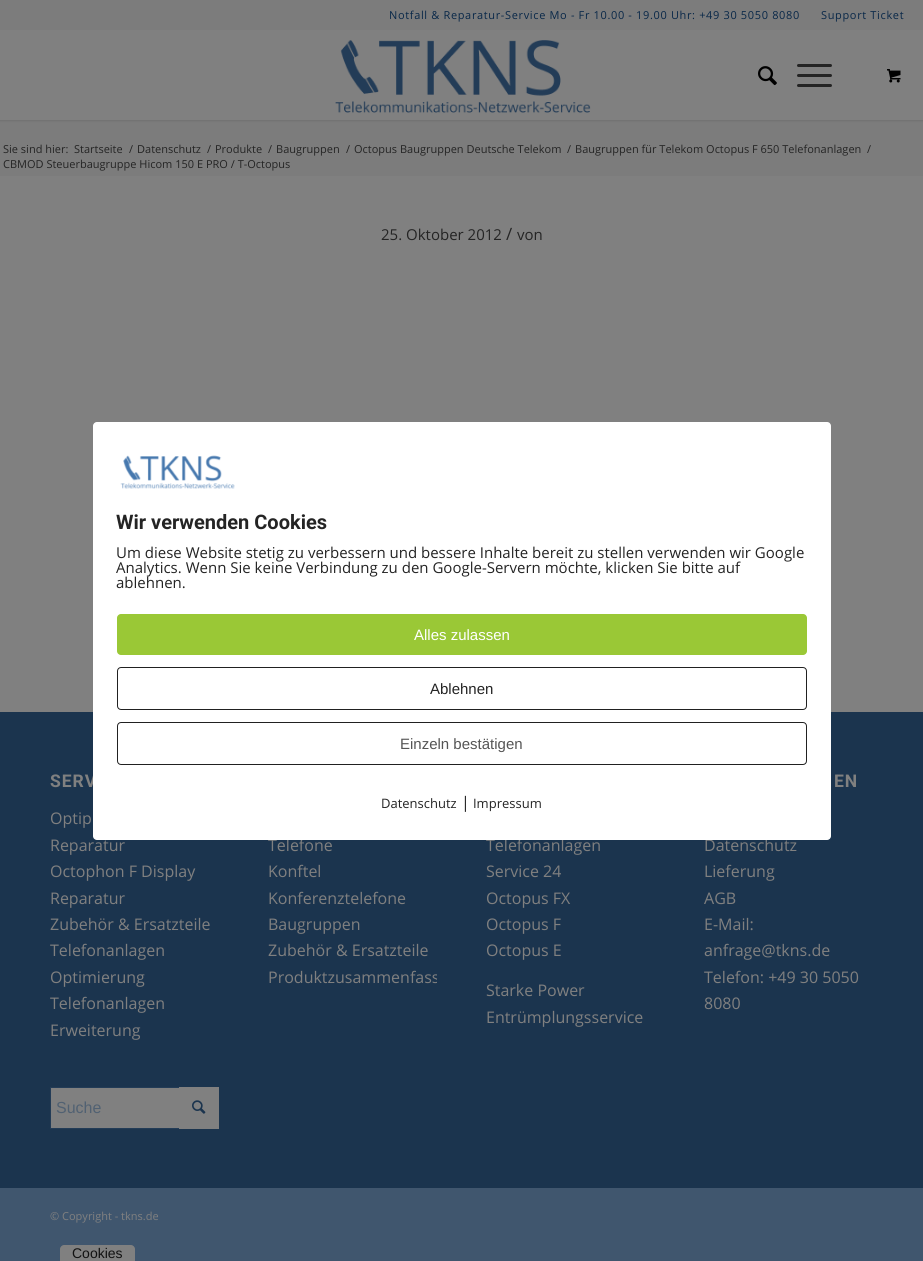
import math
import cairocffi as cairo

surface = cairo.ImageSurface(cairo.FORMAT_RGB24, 923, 1261)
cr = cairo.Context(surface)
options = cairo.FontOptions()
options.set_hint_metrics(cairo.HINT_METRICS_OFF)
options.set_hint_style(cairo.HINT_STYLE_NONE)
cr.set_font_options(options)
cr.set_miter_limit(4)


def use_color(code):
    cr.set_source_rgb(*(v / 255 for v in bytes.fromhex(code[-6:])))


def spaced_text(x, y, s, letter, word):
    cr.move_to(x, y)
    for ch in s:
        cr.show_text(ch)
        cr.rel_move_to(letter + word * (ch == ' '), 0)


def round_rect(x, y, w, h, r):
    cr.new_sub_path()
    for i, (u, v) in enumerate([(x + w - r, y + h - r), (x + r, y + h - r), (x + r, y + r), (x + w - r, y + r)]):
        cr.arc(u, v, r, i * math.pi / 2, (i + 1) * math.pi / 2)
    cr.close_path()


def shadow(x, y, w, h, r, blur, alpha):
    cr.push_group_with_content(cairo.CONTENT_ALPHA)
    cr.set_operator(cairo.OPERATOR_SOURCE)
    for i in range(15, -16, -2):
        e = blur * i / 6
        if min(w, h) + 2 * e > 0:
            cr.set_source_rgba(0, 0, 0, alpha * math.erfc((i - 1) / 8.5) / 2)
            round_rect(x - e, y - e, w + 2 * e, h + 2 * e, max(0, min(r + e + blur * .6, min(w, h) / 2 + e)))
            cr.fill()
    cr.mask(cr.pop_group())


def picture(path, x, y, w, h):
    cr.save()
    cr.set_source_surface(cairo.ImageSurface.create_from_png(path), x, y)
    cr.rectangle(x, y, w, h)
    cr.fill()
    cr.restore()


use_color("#40566e")
cr.paint()
use_color("#7c7c7c")
cr.rectangle(0, 120, 923, 56)
cr.fill()
use_color("#000000")
shadow(-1, -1, 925, 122, 0, 1, 0.1)
use_color("#7c7c7c")
cr.rectangle(0, 0, 923, 30)
cr.fill()
cr.select_font_face("Open Sans")
cr.set_font_size(11)
use_color("#082748")
spaced_text(389, 19, "Notfall & Reparatur-Service Mo - Fr 10.00 - 19.00 Uhr: +49 30 5050 8080", 0.65, 0)
spaced_text(821, 19, "Support Ticket", 0.65, 0)
use_color("#808080")
cr.rectangle(0, 30, 923, 90)
cr.fill()
picture("img1.png", 335, 40, 256, 73)
picture("img2.png", 758, 66, 19, 20)
use_color("#242424")
round_rect(797, 74, 35, 3, 1.5)
cr.fill()
round_rect(797, 64, 35, 3, 1.5)
cr.fill()
round_rect(797, 84, 35, 3, 1.5)
cr.fill()
picture("img3.png", 887, 69, 14, 14)
use_color("#808080")
cr.rectangle(0, 176, 923, 536)
cr.fill()
use_color("#242424")
cr.move_to(3, 153)
cr.show_text("Sie sind hier:")
cr.move_to(74, 153)
cr.show_text("Startseite")
cr.move_to(129, 153)
cr.show_text("/")
cr.move_to(137, 153)
cr.show_text("Datenschutz")
cr.move_to(207, 153)
cr.show_text("/")
cr.move_to(215, 153)
cr.show_text("Produkte")
cr.move_to(268, 153)
cr.show_text("/")
cr.move_to(276, 153)
cr.show_text("Baugruppen")
cr.move_to(346, 153)
cr.show_text("/")
cr.move_to(354, 153)
cr.show_text("Octopus Baugruppen Deutsche Telekom")
cr.move_to(567, 153)
cr.show_text("/")
cr.move_to(575, 153)
cr.show_text("Baugruppen für Telekom Octopus F 650 Telefonanlagen")
cr.move_to(867, 153)
cr.show_text("/")
cr.move_to(3, 168)
cr.show_text("CBMOD Steuerbaugruppe Hicom 150 E PRO / T-Octopus")
cr.set_font_size(15)
cr.move_to(381, 240)
cr.show_text("25. Oktober 2012")
cr.set_font_size(17)
cr.move_to(506, 240)
cr.show_text("/")
cr.set_font_size(15)
cr.move_to(517, 240)
cr.show_text("von")
use_color("#1b344e")
cr.rectangle(0, 712, 923, 476)
cr.fill()
cr.select_font_face("Roboto", cairo.FONT_SLANT_NORMAL, cairo.FONT_WEIGHT_BOLD)
cr.set_font_size(17.5)
use_color("#808080")
spaced_text(50, 787, "SERV", 1, 0)
cr.select_font_face("Open Sans")
cr.set_font_size(16)
cr.move_to(50, 824)
cr.show_text("Optip")
cr.move_to(50, 851)
cr.show_text("Reparatur")
cr.move_to(50, 877)
cr.show_text("Octophon F Display")
cr.move_to(50, 904)
cr.show_text("Reparatur")
cr.move_to(50, 930)
cr.show_text("Zubehör & Ersatzteile")
cr.move_to(50, 956)
cr.show_text("Telefonanlagen")
cr.move_to(50, 983)
cr.show_text("Optimierung")
cr.move_to(50, 1009)
cr.show_text("Telefonanlagen")
cr.move_to(50, 1036)
cr.show_text("Erweiterung")
cr.rectangle(51, 1088, 128, 40)
cr.fill()
cr.rectangle(50.5, 1087.5, 168, 41)
use_color("#233c57")
cr.set_line_width(1)
cr.stroke()
cr.select_font_face("Liberation Sans")
use_color("#516172")
cr.move_to(56, 1113)
cr.show_text("Suche")
use_color("#808080")
cr.rectangle(179, 1087, 40, 42)
cr.fill()
picture("img4.png", 192, 1100, 14, 14)
cr.select_font_face("Open Sans")
cr.move_to(268, 851)
cr.show_text("Telefone")
cr.move_to(268, 877)
cr.show_text("Konftel")
cr.move_to(268, 904)
cr.show_text("Konferenztelefone")
cr.move_to(268, 930)
cr.show_text("Baugruppen")
cr.move_to(268, 956)
cr.show_text("Zubehör & Ersatzteile")
cr.save()
cr.rectangle(268, 757, 169, 247)
cr.clip()
cr.move_to(268, 983)
cr.show_text("Produktzusammenfass")
cr.restore()
cr.move_to(486, 851)
cr.show_text("Telefonanlagen")
cr.move_to(486, 877)
cr.show_text("Service 24")
cr.move_to(486, 904)
cr.show_text("Octopus FX")
cr.move_to(486, 930)
cr.show_text("Octopus F")
cr.move_to(486, 956)
cr.show_text("Octopus E")
cr.move_to(486, 996)
cr.show_text("Starke Power")
cr.move_to(486, 1023)
cr.show_text("Entrümplungsservice")
cr.select_font_face("Roboto", cairo.FONT_SLANT_NORMAL, cairo.FONT_WEIGHT_BOLD)
cr.set_font_size(17.5)
spaced_text(834, 787, "EN", 1, 0)
cr.select_font_face("Open Sans")
cr.set_font_size(16)
cr.move_to(704, 851)
cr.show_text("Datenschutz")
cr.move_to(704, 877)
cr.show_text("Lieferung")
cr.move_to(704, 904)
cr.show_text("AGB")
cr.move_to(704, 930)
cr.show_text("E-Mail:")
cr.move_to(704, 956)
cr.show_text("anfrage@tkns.de")
cr.move_to(704, 983)
cr.show_text("Telefon: +49 30 5050")
cr.move_to(704, 1009)
cr.show_text("8080")
cr.set_font_size(11)
cr.move_to(50, 1220)
cr.show_text("© Copyright - tkns.de")
use_color("#ffffff")
round_rect(93, 422, 738, 418, 4)
cr.fill()
picture("img5.png", 120, 455, 115, 34)
cr.select_font_face("Roboto", cairo.FONT_SLANT_NORMAL, cairo.FONT_WEIGHT_BOLD)
cr.set_font_size(20)
use_color("#242424")
cr.move_to(116, 529)
cr.show_text("Wir verwenden Cookies")
cr.select_font_face("Open Sans")
cr.set_font_size(15)
cr.move_to(116, 558)
cr.show_text("Um diese Website stetig zu verbessern und bessere Inhalte bereit zu stellen verwenden wir Google")
cr.move_to(116, 573)
cr.show_text("Analytics. Wenn Sie keine Verbindung zu den Google-Servern möchte, klicken Sie bitte auf")
cr.move_to(116, 588)
cr.show_text("ablehnen.")
use_color("#9ac836")
round_rect(117, 614, 690, 41, 4)
cr.fill()
cr.select_font_face("Liberation Sans")
use_color("#ffffff")
cr.move_to(414, 640)
cr.show_text("Alles zulassen")
round_rect(117.5, 667.5, 689, 42, 3.5)
use_color("#212121")
cr.stroke()
use_color("#242424")
cr.move_to(430, 694)
cr.show_text("Ablehnen")
round_rect(117.5, 722.5, 689, 42, 3.5)
use_color("#212121")
cr.stroke()
use_color("#555555")
cr.move_to(400, 749)
cr.show_text("Einzeln bestätigen")
cr.select_font_face("Open Sans")
cr.set_font_size(13)
use_color("#242424")
cr.move_to(381, 808)
cr.show_text("Datenschutz")
cr.set_font_size(16)
cr.move_to(461, 808)
cr.show_text("|")
cr.set_font_size(13)
cr.move_to(473, 808)
cr.show_text("Impressum")
use_color("#808080")
cr.new_path()
cr.move_to(64, 1245)
cr.line_to(131, 1245)
cr.curve_to(133, 1245, 135, 1247, 135, 1249)
cr.line_to(135, 1261)
cr.line_to(60, 1261)
cr.line_to(60, 1249)
cr.curve_to(60, 1247, 62, 1245, 64, 1245)
cr.close_path()
cr.fill()
cr.select_font_face("Liberation Sans")
cr.set_font_size(14)
use_color("#111111")
cr.move_to(72, 1258)
cr.show_text("Cookies")
surface.write_to_png("result.png")
